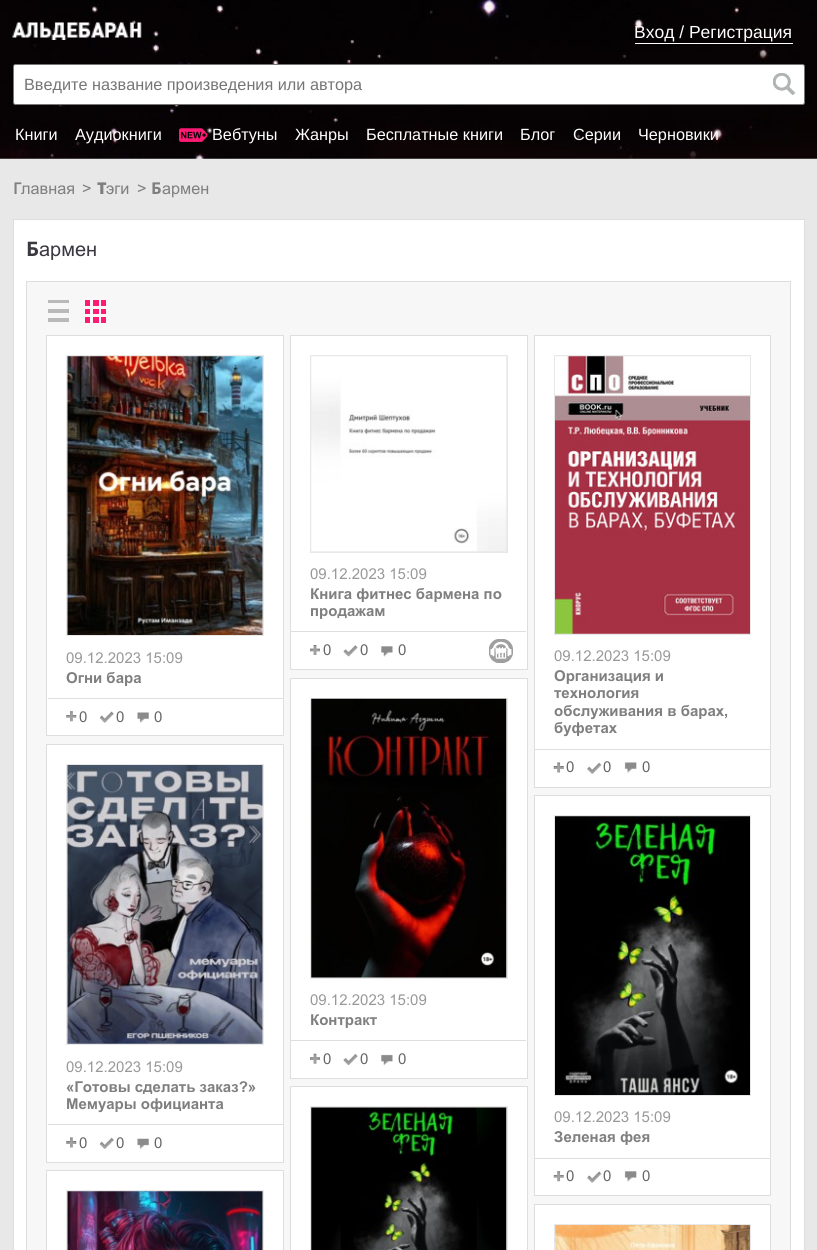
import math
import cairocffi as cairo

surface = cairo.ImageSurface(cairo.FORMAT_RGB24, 817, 1250)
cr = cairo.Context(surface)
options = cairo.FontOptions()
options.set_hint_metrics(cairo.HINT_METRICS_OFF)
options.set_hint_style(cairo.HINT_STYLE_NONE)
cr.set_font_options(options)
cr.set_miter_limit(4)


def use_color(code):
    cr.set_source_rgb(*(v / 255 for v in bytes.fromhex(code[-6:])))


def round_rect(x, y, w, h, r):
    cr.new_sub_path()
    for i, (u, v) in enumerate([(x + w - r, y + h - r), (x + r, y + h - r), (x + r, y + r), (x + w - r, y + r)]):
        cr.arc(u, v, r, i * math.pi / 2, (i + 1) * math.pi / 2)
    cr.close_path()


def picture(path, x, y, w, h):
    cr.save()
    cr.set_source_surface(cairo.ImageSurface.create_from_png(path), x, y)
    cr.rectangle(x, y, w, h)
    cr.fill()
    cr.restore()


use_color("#e8e8e8")
cr.paint()
picture("img1.png", 0, 0, 817, 159)
picture("img2.png", 12, 22, 130, 18)
use_color("#ffffff")
cr.rectangle(635, 43, 158, 1)
cr.fill()
cr.select_font_face("Liberation Sans")
cr.set_font_size(17.5)
cr.move_to(634, 38)
cr.show_text("Вход / Регистрация")
round_rect(13.5, 64.5, 791, 40, 2)
cr.fill_preserve()
use_color("#767676")
cr.set_line_width(1)
cr.stroke()
cr.set_font_size(16.25)
use_color("#757575")
cr.move_to(24, 90)
cr.show_text("Введите название произведения или автора")
picture("img3.png", 773, 73, 23, 22)
use_color("#ffffff")
cr.move_to(15, 140)
cr.show_text("Книги")
cr.move_to(75, 140)
cr.show_text("Аудиокниги")
picture("img4.png", 179, 128, 29, 14)
cr.move_to(212, 140)
cr.show_text("Вебтуны")
cr.move_to(295, 140)
cr.show_text("Жанры")
cr.move_to(366, 140)
cr.show_text("Бесплатные книги")
cr.move_to(520, 140)
cr.show_text("Блог")
cr.move_to(573, 140)
cr.show_text("Серии")
cr.move_to(638, 140)
cr.show_text("Черновики")
cr.select_font_face("Noto Sans SemiBold")
use_color("#7f7f7f")
cr.move_to(13, 194)
cr.show_text("Г")
cr.select_font_face("Arial")
cr.move_to(21, 194)
cr.show_text("лавная")
cr.move_to(82, 194)
cr.show_text(">")
cr.select_font_face("Noto Sans Black")
cr.move_to(97, 194)
cr.show_text("Т")
cr.select_font_face("Arial")
cr.move_to(106, 194)
cr.show_text("эги")
cr.move_to(137, 194)
cr.show_text(">")
cr.select_font_face("Noto Sans", cairo.FONT_SLANT_NORMAL, cairo.FONT_WEIGHT_BOLD)
cr.move_to(151, 194)
cr.show_text("Б")
cr.select_font_face("Arial")
cr.move_to(162, 194)
cr.show_text("армен")
use_color("#ffffff")
cr.rectangle(13.5, 219.5, 791, 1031)
cr.fill_preserve()
use_color("#dedede")
cr.stroke()
cr.select_font_face("Noto Sans", cairo.FONT_SLANT_NORMAL, cairo.FONT_WEIGHT_BOLD)
cr.set_font_size(20)
use_color("#3b393f")
cr.move_to(26, 256)
cr.show_text("Б")
cr.select_font_face("Arial")
cr.move_to(39, 256)
cr.show_text("армен")
use_color("#f7f7f7")
cr.rectangle(26.5, 281.5, 764, 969)
cr.fill_preserve()
use_color("#dedede")
cr.stroke()
use_color("#b9b9b9")
cr.rectangle(48, 300, 21, 3)
cr.fill()
cr.rectangle(48, 309, 21, 4)
cr.fill()
cr.rectangle(48, 318, 21, 4)
cr.fill()
picture("img5.png", 85, 300, 21, 23)
use_color("#ffffff")
cr.rectangle(46.5, 335.5, 237, 400)
cr.fill_preserve()
use_color("#dedede")
cr.stroke()
use_color("#e8e8e8")
cr.rectangle(66, 355, 198, 281)
cr.fill()
picture("img6.png", 67, 356, 196, 279)
cr.set_font_size(15)
use_color("#999999")
cr.move_to(66, 663)
cr.show_text("09.12.2023 15:09")
cr.select_font_face("Arial", cairo.FONT_SLANT_NORMAL, cairo.FONT_WEIGHT_BOLD)
use_color("#7f7f7f")
cr.move_to(66, 683)
cr.show_text("Огни бара")
use_color("#dedede")
cr.rectangle(48, 698, 235, 1)
cr.fill()
picture("img7.png", 66, 711, 11, 11)
cr.select_font_face("Arial")
use_color("#666666")
cr.move_to(79, 722)
cr.show_text("0")
picture("img8.png", 100, 711, 14, 12)
cr.move_to(116, 722)
cr.show_text("0")
picture("img9.png", 137, 712, 12, 11)
cr.move_to(154, 722)
cr.show_text("0")
use_color("#ffffff")
cr.rectangle(46.5, 744.5, 237, 418)
cr.fill_preserve()
use_color("#dedede")
cr.stroke()
use_color("#e8e8e8")
cr.rectangle(66, 764, 198, 281)
cr.fill()
picture("img10.png", 67, 765, 196, 279)
use_color("#999999")
cr.move_to(66, 1072)
cr.show_text("09.12.2023 15:09")
cr.select_font_face("Arial", cairo.FONT_SLANT_NORMAL, cairo.FONT_WEIGHT_BOLD)
use_color("#7f7f7f")
cr.move_to(66, 1092)
cr.show_text("«Готовы сделать заказ?»")
cr.move_to(66, 1109)
cr.show_text("Мемуары официанта")
use_color("#dedede")
cr.rectangle(48, 1124, 235, 1)
cr.fill()
picture("img11.png", 66, 1137, 11, 11)
cr.select_font_face("Arial")
use_color("#666666")
cr.move_to(79, 1148)
cr.show_text("0")
picture("img12.png", 100, 1137, 14, 12)
cr.move_to(116, 1148)
cr.show_text("0")
picture("img13.png", 137, 1138, 12, 11)
cr.move_to(154, 1148)
cr.show_text("0")
use_color("#ffffff")
cr.rectangle(46.5, 1170.5, 237, 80)
cr.fill_preserve()
use_color("#dedede")
cr.stroke()
use_color("#e8e8e8")
cr.rectangle(66, 1190, 198, 60)
cr.fill()
picture("img14.png", 67, 1191, 196, 59)
use_color("#ffffff")
cr.rectangle(290.5, 335.5, 237, 334)
cr.fill_preserve()
use_color("#dedede")
cr.stroke()
use_color("#e8e8e8")
cr.rectangle(310, 355, 198, 198)
cr.fill()
picture("img15.png", 311, 356, 196, 196)
use_color("#999999")
cr.move_to(310, 579)
cr.show_text("09.12.2023 15:09")
cr.select_font_face("Arial", cairo.FONT_SLANT_NORMAL, cairo.FONT_WEIGHT_BOLD)
use_color("#7f7f7f")
cr.move_to(310, 599)
cr.show_text("Книга фитнес бармена по")
cr.move_to(310, 616)
cr.show_text("продажам")
use_color("#dedede")
cr.rectangle(291, 631, 235, 1)
cr.fill()
picture("img16.png", 310, 645, 10, 10)
cr.select_font_face("Arial")
use_color("#666666")
cr.move_to(323, 655)
cr.show_text("0")
picture("img17.png", 343, 645, 15, 12)
cr.move_to(360, 655)
cr.show_text("0")
picture("img18.png", 381, 646, 12, 11)
cr.move_to(398, 655)
cr.show_text("0")
picture("img19.png", 489, 639, 24, 24)
use_color("#ffffff")
cr.rectangle(290.5, 678.5, 237, 400)
cr.fill_preserve()
use_color("#dedede")
cr.stroke()
use_color("#e8e8e8")
cr.rectangle(310, 698, 198, 281)
cr.fill()
picture("img20.png", 311, 698, 196, 280)
use_color("#999999")
cr.move_to(310, 1005)
cr.show_text("09.12.2023 15:09")
cr.select_font_face("Arial", cairo.FONT_SLANT_NORMAL, cairo.FONT_WEIGHT_BOLD)
use_color("#7f7f7f")
cr.move_to(310, 1025)
cr.show_text("Контракт")
use_color("#dedede")
cr.rectangle(291, 1040, 235, 1)
cr.fill()
picture("img21.png", 310, 1053, 10, 11)
cr.select_font_face("Arial")
use_color("#666666")
cr.move_to(323, 1064)
cr.show_text("0")
picture("img22.png", 343, 1053, 15, 12)
cr.move_to(360, 1064)
cr.show_text("0")
picture("img23.png", 381, 1054, 12, 12)
cr.move_to(398, 1064)
cr.show_text("0")
use_color("#ffffff")
cr.rectangle(290.5, 1086.5, 237, 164)
cr.fill_preserve()
use_color("#dedede")
cr.stroke()
use_color("#e8e8e8")
cr.rectangle(310, 1106, 198, 144)
cr.fill()
picture("img24.png", 311, 1107, 196, 143)
use_color("#ffffff")
cr.rectangle(534.5, 335.5, 236, 452)
cr.fill_preserve()
use_color("#dedede")
cr.stroke()
use_color("#e8e8e8")
cr.rectangle(554, 355, 197, 280)
cr.fill()
picture("img25.png", 555, 356, 195, 278)
use_color("#999999")
cr.move_to(554, 661)
cr.show_text("09.12.2023 15:09")
cr.select_font_face("Arial", cairo.FONT_SLANT_NORMAL, cairo.FONT_WEIGHT_BOLD)
use_color("#7f7f7f")
cr.move_to(554, 681)
cr.show_text("Организация и")
cr.move_to(554, 698)
cr.show_text("технология")
cr.move_to(554, 716)
cr.show_text("обслуживания в барах,")
cr.move_to(554, 733)
cr.show_text("буфетах")
use_color("#dedede")
cr.rectangle(535, 749, 235, 1)
cr.fill()
picture("img26.png", 553, 762, 11, 11)
cr.select_font_face("Arial")
use_color("#666666")
cr.move_to(566, 772)
cr.show_text("0")
picture("img27.png", 587, 762, 15, 12)
cr.move_to(603, 772)
cr.show_text("0")
picture("img28.png", 624, 762, 13, 11)
cr.move_to(642, 772)
cr.show_text("0")
use_color("#ffffff")
cr.rectangle(534.5, 795.5, 236, 400)
cr.fill_preserve()
use_color("#dedede")
cr.stroke()
use_color("#e8e8e8")
cr.rectangle(554, 815, 197, 281)
cr.fill()
picture("img29.png", 555, 816, 195, 279)
use_color("#999999")
cr.move_to(554, 1122)
cr.show_text("09.12.2023 15:09")
cr.select_font_face("Arial", cairo.FONT_SLANT_NORMAL, cairo.FONT_WEIGHT_BOLD)
use_color("#7f7f7f")
cr.move_to(554, 1142)
cr.show_text("Зеленая фея")
use_color("#dedede")
cr.rectangle(535, 1158, 235, 1)
cr.fill()
picture("img30.png", 553, 1171, 11, 11)
cr.select_font_face("Arial")
use_color("#666666")
cr.move_to(566, 1181)
cr.show_text("0")
picture("img31.png", 587, 1171, 15, 12)
cr.move_to(603, 1181)
cr.show_text("0")
picture("img32.png", 624, 1171, 13, 11)
cr.move_to(642, 1181)
cr.show_text("0")
use_color("#ffffff")
cr.rectangle(534.5, 1204.5, 236, 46)
cr.fill_preserve()
use_color("#dedede")
cr.stroke()
use_color("#e8e8e8")
cr.rectangle(554, 1224, 197, 26)
cr.fill()
picture("img33.png", 555, 1225, 195, 25)
surface.write_to_png("result.png")
